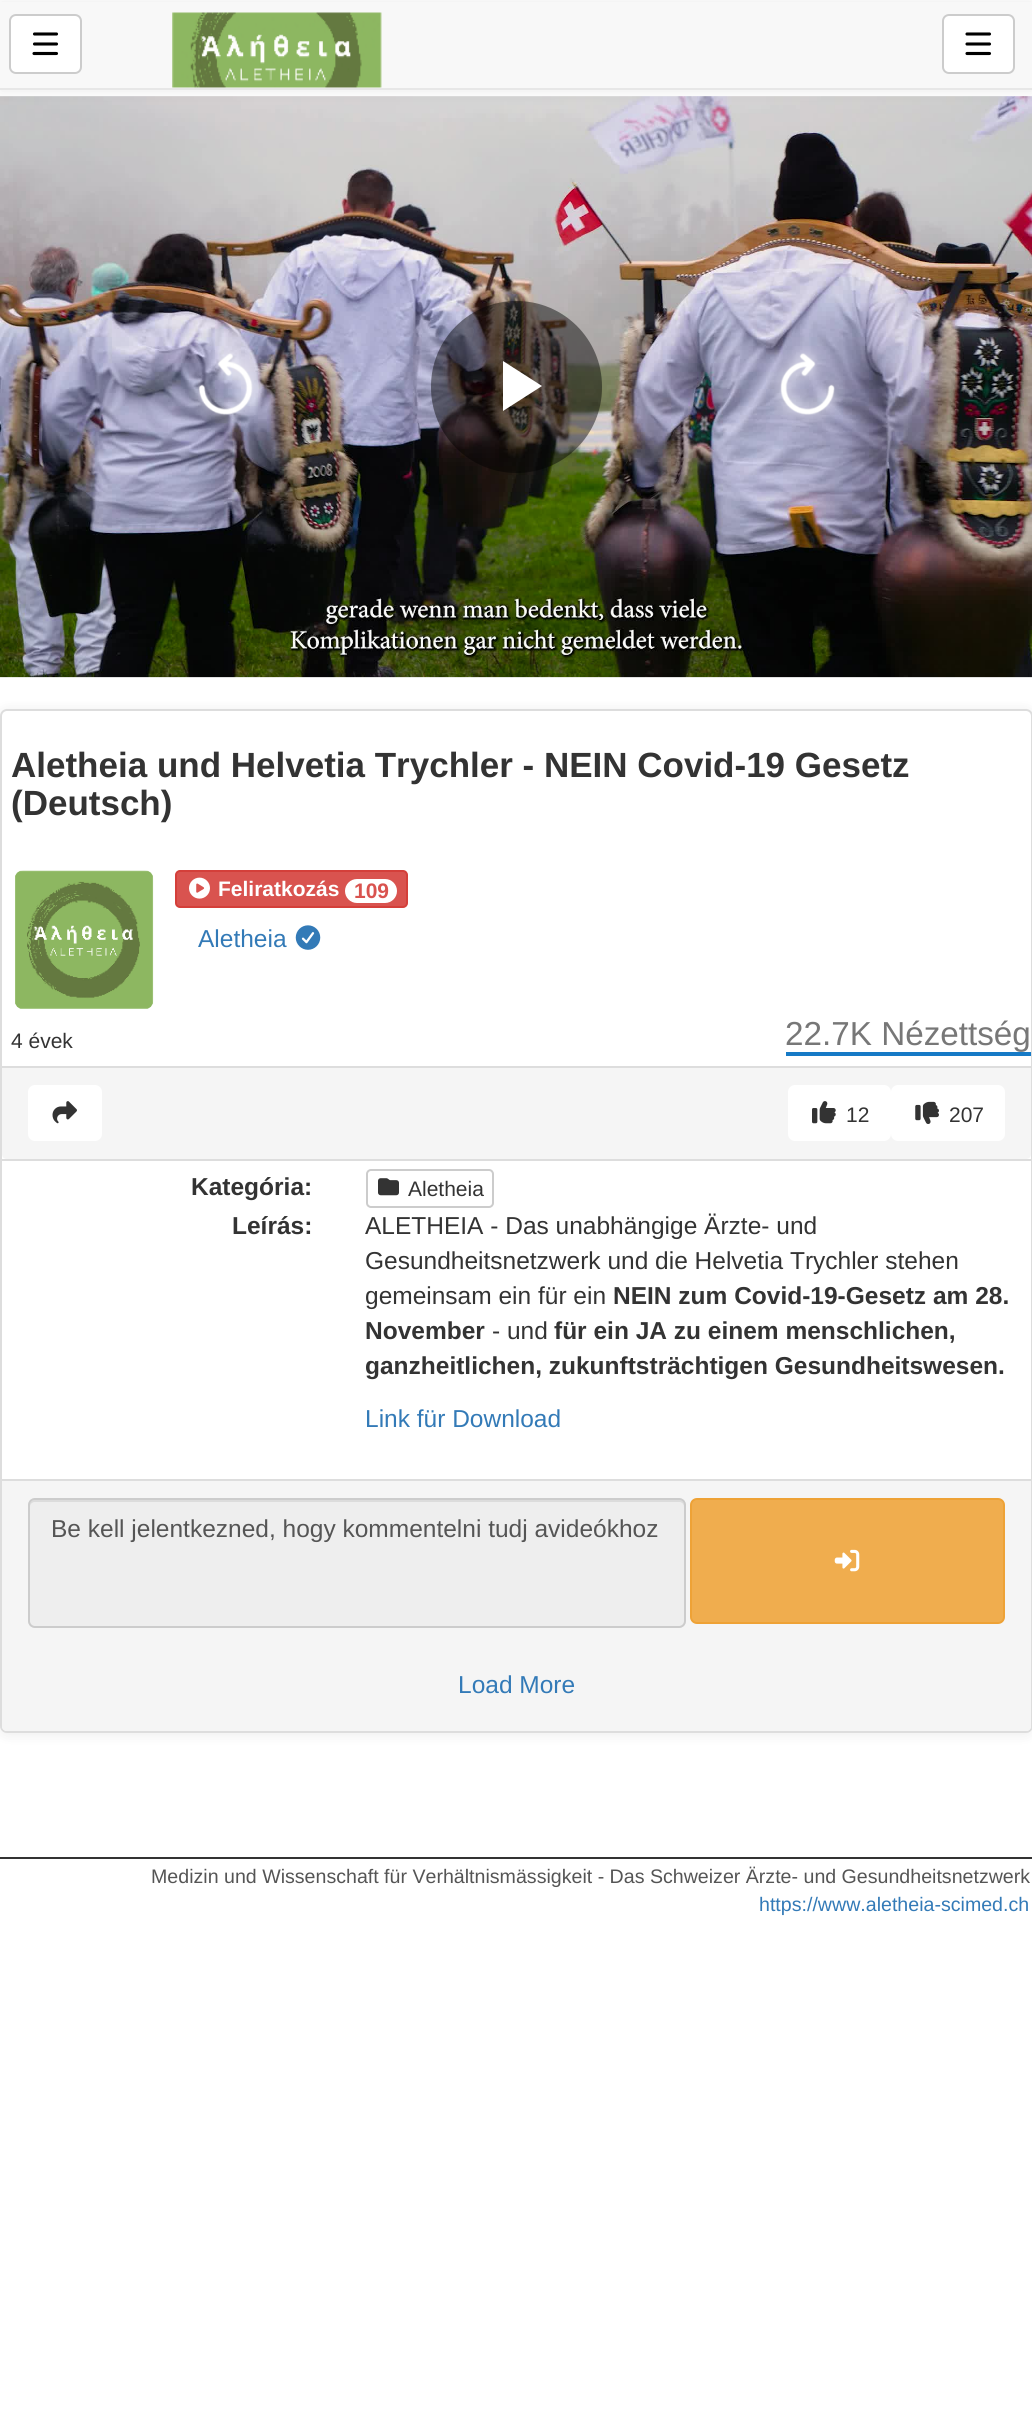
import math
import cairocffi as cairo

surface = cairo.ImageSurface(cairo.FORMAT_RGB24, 1032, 2413)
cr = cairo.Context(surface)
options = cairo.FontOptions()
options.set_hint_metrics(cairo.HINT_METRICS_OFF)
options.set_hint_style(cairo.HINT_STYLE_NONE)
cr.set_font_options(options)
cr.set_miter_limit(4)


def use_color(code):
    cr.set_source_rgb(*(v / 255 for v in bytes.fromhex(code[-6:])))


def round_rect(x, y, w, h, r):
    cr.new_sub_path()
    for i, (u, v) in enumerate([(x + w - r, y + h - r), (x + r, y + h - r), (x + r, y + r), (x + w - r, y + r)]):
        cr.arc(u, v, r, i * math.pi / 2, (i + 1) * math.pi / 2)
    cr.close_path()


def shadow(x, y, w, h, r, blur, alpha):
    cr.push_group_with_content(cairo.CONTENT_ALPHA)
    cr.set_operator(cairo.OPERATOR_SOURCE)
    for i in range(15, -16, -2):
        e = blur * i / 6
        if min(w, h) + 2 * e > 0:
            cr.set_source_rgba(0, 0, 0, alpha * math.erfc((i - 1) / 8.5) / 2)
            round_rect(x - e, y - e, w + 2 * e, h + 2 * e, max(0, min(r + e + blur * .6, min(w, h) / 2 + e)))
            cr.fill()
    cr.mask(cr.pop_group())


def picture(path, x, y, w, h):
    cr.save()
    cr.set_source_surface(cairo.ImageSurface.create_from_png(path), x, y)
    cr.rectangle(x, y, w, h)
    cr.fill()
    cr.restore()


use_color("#ffffff")
cr.paint()
picture("img2.png", 0, 96, 1032, 582)
picture("img3.png", 0, 96, 1032, 582)
use_color("#000000")
shadow(0, 2, 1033, 89, 0, 7, 0.08)
use_color("#f8f8f8")
cr.rectangle(0, 2, 1032, 86)
cr.fill()
use_color("#e7e7e7")
cr.rectangle(0, 88, 1032, 2)
cr.fill()
use_color("#ffffff")
round_rect(10, 15, 71, 58, 6)
cr.fill_preserve()
use_color("#cccccc")
cr.stroke()
cr.new_path()
cr.move_to(56.5, 34)
cr.line_to(34.5, 34)
cr.move_to(56.5, 44)
cr.line_to(34.5, 44)
cr.move_to(56.5, 53.5)
cr.line_to(34, 53.5)
use_color("#000000")
cr.set_line_width(3.1)
cr.set_line_cap(cairo.LINE_CAP_ROUND)
cr.stroke()
picture("img1.png", 172, 12, 210, 76)
use_color("#ffffff")
round_rect(943, 15, 71, 58, 6)
cr.fill_preserve()
use_color("#cccccc")
cr.set_line_width(2)
cr.set_line_cap(cairo.LINE_CAP_BUTT)
cr.stroke()
cr.new_path()
cr.move_to(989.5, 34)
cr.line_to(967, 34)
cr.move_to(989.5, 44)
cr.line_to(967, 44)
cr.move_to(967, 53.5)
cr.line_to(989.5, 53.5)
use_color("#000000")
cr.set_line_width(3.1)
cr.set_line_cap(cairo.LINE_CAP_ROUND)
cr.stroke()
picture("img4.png", 188, 346, 657, 80)
cr.set_source_rgba(0, 0, 0, 0.45)
round_rect(431, 301, 171, 172, 85.5)
cr.fill()
use_color("#ffffff")
cr.new_path()
cr.move_to(503, 361)
cr.line_to(503, 411)
cr.line_to(542, 386)
cr.close_path()
cr.fill()
use_color("#000000")
shadow(0, 711, 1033, 1023, 7, 7, 0.08)
use_color("#ffffff")
round_rect(1, 710, 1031, 1022, 6)
cr.fill_preserve()
use_color("#dddddd")
cr.set_line_width(2)
cr.set_line_cap(cairo.LINE_CAP_BUTT)
cr.stroke()
cr.select_font_face("Liberation Sans", cairo.FONT_SLANT_NORMAL, cairo.FONT_WEIGHT_BOLD)
cr.set_font_size(35)
use_color("#333333")
cr.move_to(11, 777)
cr.show_text("Aletheia und Helvetia Trychler - NEIN Covid-19 Gesetz")
cr.move_to(11, 815)
cr.show_text("(Deutsch)")
picture("img5.png", 15, 870, 139, 139)
use_color("#d9534f")
round_rect(176, 871, 231, 36, 4)
cr.fill_preserve()
use_color("#d43f3a")
cr.stroke()
picture("img6.png", 189, 877, 21, 22)
cr.set_font_size(21)
use_color("#ffffff")
cr.move_to(218, 896)
cr.show_text("Feliratkozás")
round_rect(345, 879, 52, 24, 12)
cr.fill()
use_color("#d9534f")
cr.move_to(354, 898)
cr.show_text("109")
cr.select_font_face("Liberation Sans")
cr.set_font_size(24.5)
use_color("#337ab7")
cr.move_to(198, 947)
cr.show_text("Aletheia")
picture("img7.png", 295, 925, 26, 25)
cr.set_font_size(21)
use_color("#333333")
cr.move_to(11, 1048)
cr.show_text("4 évek")
use_color("#167ac6")
cr.rectangle(786, 1052, 245, 4)
cr.fill()
cr.set_font_size(33.25)
use_color("#777777")
cr.move_to(785, 1045)
cr.show_text("22.7K Nézettség")
use_color("#f5f5f5")
cr.new_path()
cr.move_to(2, 1066)
cr.line_to(1031, 1066)
cr.line_to(1031, 1154)
cr.curve_to(1031, 1157, 1029, 1159, 1026, 1159)
cr.line_to(7, 1159)
cr.curve_to(4, 1159, 2, 1157, 2, 1154)
cr.close_path()
cr.fill()
use_color("#dddddd")
cr.rectangle(2, 1066, 1029, 2)
cr.fill()
use_color("#ffffff")
round_rect(28, 1085, 74, 56, 7)
cr.fill()
picture("img8.png", 52, 1101, 25, 23)
round_rect(788, 1085, 103, 56, 7)
cr.fill()
picture("img9.png", 812, 1101, 24, 23)
cr.set_font_size(21)
use_color("#333333")
cr.move_to(846, 1122)
cr.show_text("12")
use_color("#ffffff")
round_rect(891, 1085, 114, 56, 7)
cr.fill()
picture("img10.png", 915, 1101, 24, 23)
use_color("#333333")
cr.move_to(949, 1122)
cr.show_text("207")
use_color("#dddddd")
cr.rectangle(2, 1159, 1029, 2)
cr.fill()
cr.select_font_face("Liberation Sans", cairo.FONT_SLANT_NORMAL, cairo.FONT_WEIGHT_BOLD)
cr.set_font_size(24.5)
use_color("#333333")
cr.move_to(191, 1195)
cr.show_text("Kategória:")
round_rect(367, 1170, 126, 37, 4)
use_color("#cccccc")
cr.stroke()
picture("img11.png", 378, 1178, 21, 18)
cr.select_font_face("Liberation Sans")
cr.set_font_size(21)
use_color("#333333")
cr.move_to(408, 1196)
cr.show_text("Aletheia")
cr.select_font_face("Liberation Sans", cairo.FONT_SLANT_NORMAL, cairo.FONT_WEIGHT_BOLD)
cr.set_font_size(24.5)
cr.move_to(232, 1234)
cr.show_text("Leírás:")
cr.select_font_face("Liberation Sans")
cr.move_to(365, 1234)
cr.show_text("ALETHEIA - Das unabhängige Ärzte- und")
cr.move_to(365, 1269)
cr.show_text("Gesundheitsnetzwerk und die Helvetia Trychler stehen")
cr.move_to(365, 1304)
cr.show_text("gemeinsam ein für ein")
cr.select_font_face("Liberation Sans", cairo.FONT_SLANT_NORMAL, cairo.FONT_WEIGHT_BOLD)
cr.move_to(613, 1304)
cr.show_text("NEIN zum Covid-19-Gesetz am 28.")
cr.move_to(365, 1339)
cr.show_text("November")
cr.select_font_face("Liberation Sans")
cr.move_to(492, 1339)
cr.show_text("- und")
cr.select_font_face("Liberation Sans", cairo.FONT_SLANT_NORMAL, cairo.FONT_WEIGHT_BOLD)
cr.move_to(554, 1339)
cr.show_text("für ein JA zu einem menschlichen,")
cr.move_to(365, 1374)
cr.show_text("ganzheitlichen, zukunftsträchtigen Gesundheitswesen.")
cr.select_font_face("Liberation Sans")
use_color("#337ab7")
cr.move_to(365, 1427)
cr.show_text("Link für Download")
use_color("#f5f5f5")
cr.new_path()
cr.move_to(2, 1479)
cr.line_to(1031, 1479)
cr.line_to(1031, 1726)
cr.curve_to(1031, 1729, 1029, 1731, 1026, 1731)
cr.line_to(7, 1731)
cr.curve_to(4, 1731, 2, 1729, 2, 1726)
cr.close_path()
cr.fill()
use_color("#dddddd")
cr.rectangle(2, 1479, 1029, 2)
cr.fill()
use_color("#eeeeee")
round_rect(28, 1498, 658, 130, 7)
cr.fill()
use_color("#dcdcdc")
cr.new_path()
cr.move_to(35, 1502)
cr.line_to(679, 1502)
cr.curve_to(682, 1502, 684, 1504, 684, 1507)
cr.line_to(684, 1505)
cr.curve_to(684, 1502, 682, 1500, 679, 1500)
cr.line_to(35, 1500)
cr.curve_to(32, 1500, 30, 1502, 30, 1505)
cr.line_to(30, 1507)
cr.curve_to(30, 1504, 32, 1502, 35, 1502)
cr.close_path()
cr.fill()
round_rect(29, 1499, 656, 128, 6)
use_color("#cccccc")
cr.stroke()
use_color("#555555")
cr.move_to(51, 1537)
cr.show_text("Be kell jelentkezned, hogy kommentelni tudj avideókhoz")
use_color("#f0ad4e")
round_rect(691, 1499, 313, 124, 6)
cr.fill_preserve()
use_color("#eea236")
cr.stroke()
picture("img12.png", 834, 1549, 26, 23)
use_color("#337ab7")
cr.move_to(458, 1693)
cr.show_text("Load More")
use_color("#323232")
cr.rectangle(0, 1857, 1032, 2)
cr.fill()
cr.set_font_size(19.6)
use_color("#555555")
cr.move_to(151, 1883)
cr.show_text("Medizin und Wissenschaft für Verhältnismässigkeit - Das Schweizer Ärzte- und Gesundheitsnetzwerk")
use_color("#337ab7")
cr.move_to(759, 1911)
cr.show_text("https://www.aletheia-scimed.ch")
surface.write_to_png("result.png")
